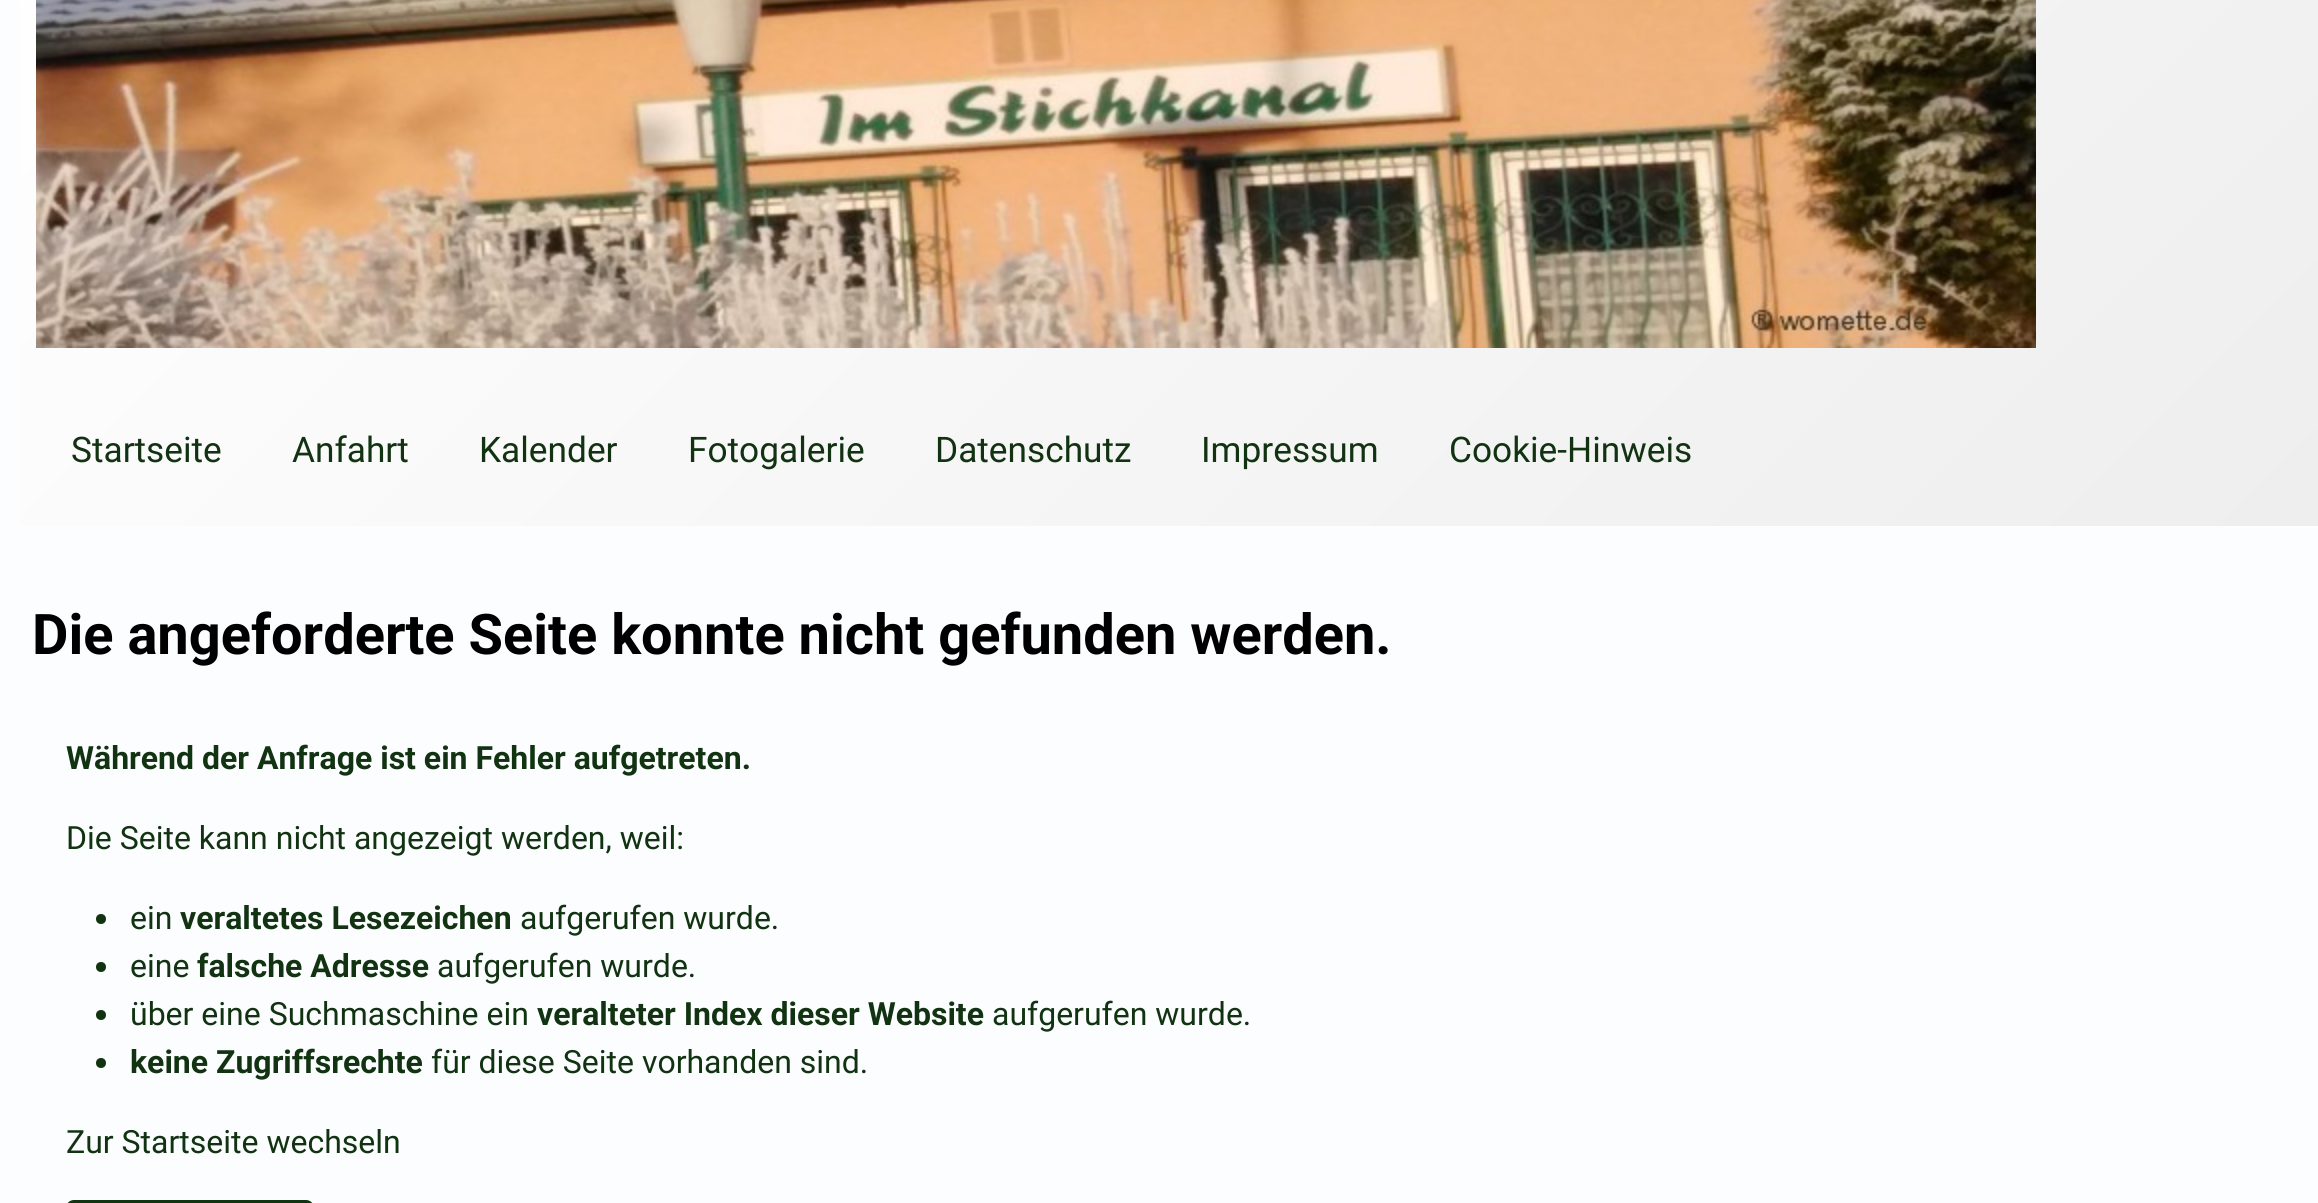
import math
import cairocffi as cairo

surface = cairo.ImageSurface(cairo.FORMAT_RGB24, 2318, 1203)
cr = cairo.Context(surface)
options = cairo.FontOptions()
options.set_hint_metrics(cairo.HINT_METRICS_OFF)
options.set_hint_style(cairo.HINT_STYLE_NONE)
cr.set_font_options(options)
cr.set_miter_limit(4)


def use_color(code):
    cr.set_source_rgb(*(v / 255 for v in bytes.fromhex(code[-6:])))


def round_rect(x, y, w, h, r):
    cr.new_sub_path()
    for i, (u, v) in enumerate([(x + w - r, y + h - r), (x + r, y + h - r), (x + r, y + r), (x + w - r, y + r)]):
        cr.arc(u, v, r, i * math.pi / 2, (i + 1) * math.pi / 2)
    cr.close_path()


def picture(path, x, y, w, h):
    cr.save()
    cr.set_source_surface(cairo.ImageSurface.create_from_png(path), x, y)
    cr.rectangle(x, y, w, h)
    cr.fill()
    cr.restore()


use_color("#fcfdff")
cr.paint()
gradient = cairo.LinearGradient(444, -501, 1895, 949)
gradient.add_color_stop_rgba(0, 1, 1, 1, 1)
gradient.add_color_stop_rgba(1, 0.933, 0.933, 0.933, 1)
cr.set_source(gradient)
cr.rectangle(20, 0, 2298, 526)
cr.fill()
picture("img1.png", 36, 0, 2000, 348)
cr.select_font_face("Roboto")
cr.set_font_size(35.25)
use_color("#113311")
cr.move_to(71, 462)
cr.show_text("Startseite")
cr.move_to(292, 462)
cr.show_text("Anfahrt")
cr.move_to(479, 462)
cr.show_text("Kalender")
cr.move_to(688, 462)
cr.show_text("Fotogalerie")
cr.move_to(935, 462)
cr.show_text("Datenschutz")
cr.move_to(1201, 462)
cr.show_text("Impressum")
cr.move_to(1449, 462)
cr.show_text("Cookie-Hinweis")
cr.select_font_face("Roboto", cairo.FONT_SLANT_NORMAL, cairo.FONT_WEIGHT_BOLD)
cr.set_font_size(56)
use_color("#000000")
cr.move_to(32, 654)
cr.show_text("Die angeforderte Seite konnte nicht gefunden werden.")
cr.set_font_size(32)
use_color("#113311")
cr.move_to(66, 769)
cr.show_text("Während der Anfrage ist ein Fehler aufgetreten.")
cr.select_font_face("Roboto")
cr.move_to(66, 849)
cr.show_text("Die Seite kann nicht angezeigt werden, weil:")
cr.new_path()
cr.arc(101, 919, 5, 0, 2 * math.pi)
cr.fill()
cr.move_to(130, 929)
cr.show_text("ein")
cr.select_font_face("Roboto", cairo.FONT_SLANT_NORMAL, cairo.FONT_WEIGHT_BOLD)
cr.move_to(180, 929)
cr.show_text("veraltetes Lesezeichen")
cr.select_font_face("Roboto")
cr.move_to(520, 929)
cr.show_text("aufgerufen wurde.")
cr.new_path()
cr.arc(101, 967, 5, 0, 2 * math.pi)
cr.fill()
cr.move_to(130, 977)
cr.show_text("eine")
cr.select_font_face("Roboto", cairo.FONT_SLANT_NORMAL, cairo.FONT_WEIGHT_BOLD)
cr.move_to(197, 977)
cr.show_text("falsche Adresse")
cr.select_font_face("Roboto")
cr.move_to(437, 977)
cr.show_text("aufgerufen wurde.")
cr.new_path()
cr.arc(101, 1015, 5, 0, 2 * math.pi)
cr.fill()
cr.move_to(130, 1025)
cr.show_text("über eine Suchmaschine ein")
cr.select_font_face("Roboto", cairo.FONT_SLANT_NORMAL, cairo.FONT_WEIGHT_BOLD)
cr.move_to(537, 1025)
cr.show_text("veralteter Index dieser Website")
cr.select_font_face("Roboto")
cr.move_to(992, 1025)
cr.show_text("aufgerufen wurde.")
cr.new_path()
cr.arc(101, 1063, 5, 0, 2 * math.pi)
cr.fill()
cr.select_font_face("Roboto", cairo.FONT_SLANT_NORMAL, cairo.FONT_WEIGHT_BOLD)
cr.move_to(130, 1073)
cr.show_text("keine Zugriffsrechte")
cr.select_font_face("Roboto")
cr.move_to(431, 1073)
cr.show_text("für diese Seite vorhanden sind.")
cr.move_to(66, 1153)
cr.show_text("Zur Startseite wechseln")
round_rect(67, 1201, 246, 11, 7)
cr.fill_preserve()
cr.stroke()
surface.write_to_png("result.png")
